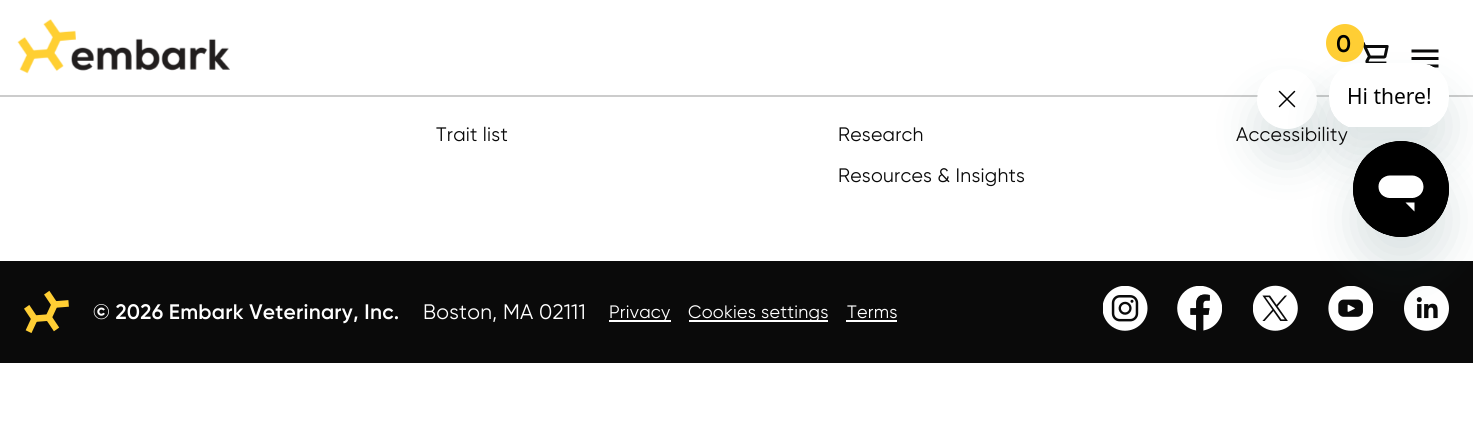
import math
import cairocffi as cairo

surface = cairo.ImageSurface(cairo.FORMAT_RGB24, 1473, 437)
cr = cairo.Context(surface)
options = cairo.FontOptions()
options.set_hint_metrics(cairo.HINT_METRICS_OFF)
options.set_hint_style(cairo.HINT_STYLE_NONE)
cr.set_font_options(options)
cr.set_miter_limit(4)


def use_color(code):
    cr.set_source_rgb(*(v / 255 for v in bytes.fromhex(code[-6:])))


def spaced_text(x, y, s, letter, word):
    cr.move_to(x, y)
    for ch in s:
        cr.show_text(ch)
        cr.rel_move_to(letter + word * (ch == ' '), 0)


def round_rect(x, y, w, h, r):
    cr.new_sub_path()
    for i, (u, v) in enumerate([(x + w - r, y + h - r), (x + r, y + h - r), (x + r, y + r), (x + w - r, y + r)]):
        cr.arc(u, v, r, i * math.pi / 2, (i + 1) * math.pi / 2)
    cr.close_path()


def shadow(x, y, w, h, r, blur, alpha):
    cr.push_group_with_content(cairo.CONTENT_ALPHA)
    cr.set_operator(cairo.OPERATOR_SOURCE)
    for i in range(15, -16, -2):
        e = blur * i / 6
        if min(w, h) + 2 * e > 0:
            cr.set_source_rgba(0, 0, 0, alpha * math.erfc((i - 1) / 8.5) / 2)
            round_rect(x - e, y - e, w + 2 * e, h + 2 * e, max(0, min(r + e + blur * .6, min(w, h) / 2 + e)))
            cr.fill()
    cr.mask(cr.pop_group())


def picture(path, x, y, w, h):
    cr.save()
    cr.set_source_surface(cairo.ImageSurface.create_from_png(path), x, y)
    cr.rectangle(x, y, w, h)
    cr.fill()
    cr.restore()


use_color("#ffffff")
cr.paint()
use_color("#cccccc")
cr.rectangle(0, 95, 1473, 2)
cr.fill()
picture("img5.png", 1363, 42, 26, 21)
use_color("#ffce34")
cr.arc(1345, 43, 19, 0, 2 * math.pi)
cr.fill()
cr.save()
cr.set_fill_rule(cairo.FILL_RULE_EVEN_ODD)
cr.new_path()
cr.move_to(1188, 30)
cr.line_to(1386, 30)
cr.line_to(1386, 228)
cr.line_to(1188, 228)
cr.close_path()
cr.move_to(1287, 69)
cr.curve_to(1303.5, 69, 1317, 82.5, 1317, 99)
cr.curve_to(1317, 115.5, 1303.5, 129, 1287, 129)
cr.curve_to(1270.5, 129, 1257, 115.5, 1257, 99)
cr.curve_to(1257, 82.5, 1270.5, 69, 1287, 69)
cr.close_path()
cr.clip()
use_color("#17494d")
shadow(1257, 99, 60, 60, 30, 22.5, 0.15)
cr.restore()
picture("img2.png", 1257, 90, 60, 18)
picture("img6.png", 1411, 49, 28, 19)
use_color("#17494d")
shadow(1329, 93, 120, 66, 30, 22.5, 0.15)
cr.select_font_face("Gilroy")
cr.set_font_size(19.5)
use_color("#0a0a0a")
spaced_text(1236, 141, "Accessibility", 0.25, 0)
picture("img1.png", 1329, 63, 120, 64)
cr.rectangle(0, 261, 1473, 102)
cr.fill()
picture("img10.png", 1253, 285, 45, 46)
picture("img11.png", 1328, 286, 45, 45)
picture("img12.png", 1404, 286, 45, 45)
use_color("#17494d")
shadow(1353, 171, 96, 96, 48, 22.5, 0.15)
picture("img3.png", 1353, 141, 96, 96)
picture("img4.png", 17, 19, 213, 55)
cr.select_font_face("Gilroy SemiBold")
cr.set_font_size(24)
use_color("#000000")
spaced_text(1336, 52, "0", 0.25, 0)
cr.select_font_face("Gilroy")
cr.set_font_size(19.5)
use_color("#0a0a0a")
spaced_text(436, 141, "Trait list", 0.25, 0)
spaced_text(838, 141, "Research", 0.25, 0)
spaced_text(838, 182, "Resources & Insights", 0.25, 0)
picture("img7.png", 24, 290, 45, 43)
cr.select_font_face("Gilroy SemiBold")
cr.set_font_size(21)
use_color("#ffffff")
spaced_text(93, 319, "© 2026 Embark Veterinary, Inc.", 0.25, 0)
cr.select_font_face("Gilroy")
spaced_text(423, 319, "Boston, MA 02111", 0.25, 0)
cr.rectangle(609, 320, 62, 2)
cr.fill()
cr.set_font_size(18)
spaced_text(609, 318, "Privacy", 0.25, 0)
cr.rectangle(689, 320, 139, 2)
cr.fill()
spaced_text(688, 318, "Cookies settings", 0.25, 0)
spaced_text(847, 318, "Terms", 0.25, 0)
cr.rectangle(846, 320, 51, 2)
cr.fill()
picture("img8.png", 1103, 286, 45, 45)
picture("img9.png", 1177, 286, 45, 45)
surface.write_to_png("result.png")
